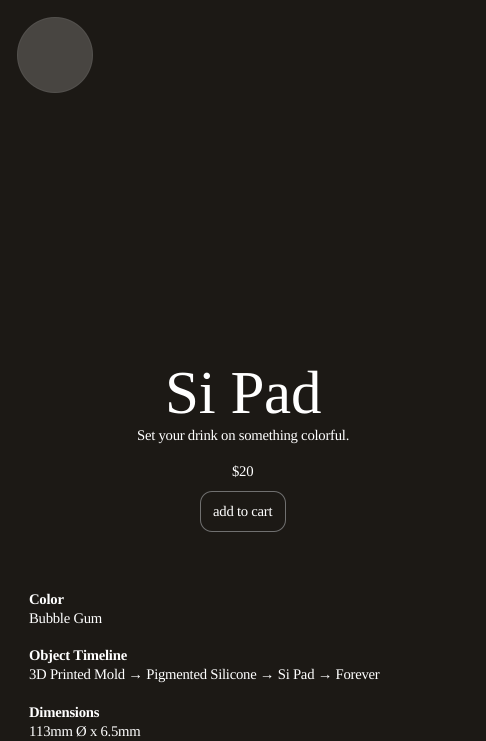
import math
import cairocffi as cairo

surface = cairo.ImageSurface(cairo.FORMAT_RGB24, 486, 741)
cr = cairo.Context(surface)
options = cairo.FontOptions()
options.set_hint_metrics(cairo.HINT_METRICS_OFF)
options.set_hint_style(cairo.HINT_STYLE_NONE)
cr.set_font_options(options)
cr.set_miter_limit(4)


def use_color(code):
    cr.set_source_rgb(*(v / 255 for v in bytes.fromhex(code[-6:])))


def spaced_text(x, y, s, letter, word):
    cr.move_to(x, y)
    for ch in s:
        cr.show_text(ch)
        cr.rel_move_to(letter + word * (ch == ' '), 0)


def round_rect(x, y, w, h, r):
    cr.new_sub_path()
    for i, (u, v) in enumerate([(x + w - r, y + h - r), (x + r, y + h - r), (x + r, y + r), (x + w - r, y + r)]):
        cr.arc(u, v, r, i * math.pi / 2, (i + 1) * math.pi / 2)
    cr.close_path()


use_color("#1c1915")
cr.paint()
use_color("#484541")
cr.arc(55, 55, 38, 0, 2 * math.pi)
cr.fill()
cr.arc(55, 55, 37.5, 0, 2 * math.pi)
cr.set_source_rgba(0.494, 0.494, 0.494, 0.2)
cr.set_line_width(1)
cr.stroke()
cr.select_font_face("Liberation Serif")
cr.set_font_size(61)
use_color("#ffffff")
spaced_text(165, 413, "Si Pad", -0.25, 0)
cr.set_font_size(14.7)
spaced_text(137, 440, "Set your drink on something colorful.", -0.25, 0)
spaced_text(232, 476, "$20", -0.25, 0)
round_rect(200.5, 491.5, 85, 40, 11.5)
use_color("#707070")
cr.stroke()
use_color("#ffffff")
spaced_text(213, 516, "add to cart", -0.25, 0)
cr.select_font_face("Liberation Serif", cairo.FONT_SLANT_NORMAL, cairo.FONT_WEIGHT_BOLD)
spaced_text(29, 604, "Color", -0.25, 0)
cr.select_font_face("Liberation Serif")
spaced_text(29, 623, "Bubble Gum", -0.25, 0)
cr.select_font_face("Liberation Serif", cairo.FONT_SLANT_NORMAL, cairo.FONT_WEIGHT_BOLD)
spaced_text(29, 660, "Object Timeline", -0.25, 0)
cr.select_font_face("Liberation Serif")
spaced_text(29, 679, "3D Printed Mold → Pigmented Silicone → Si Pad → Forever", -0.25, 0)
cr.select_font_face("Liberation Serif", cairo.FONT_SLANT_NORMAL, cairo.FONT_WEIGHT_BOLD)
spaced_text(29, 717, "Dimensions", -0.25, 0)
cr.select_font_face("Liberation Serif")
spaced_text(29, 736, "113mm Ø x 6.5mm", -0.25, 0)
surface.write_to_png("result.png")
